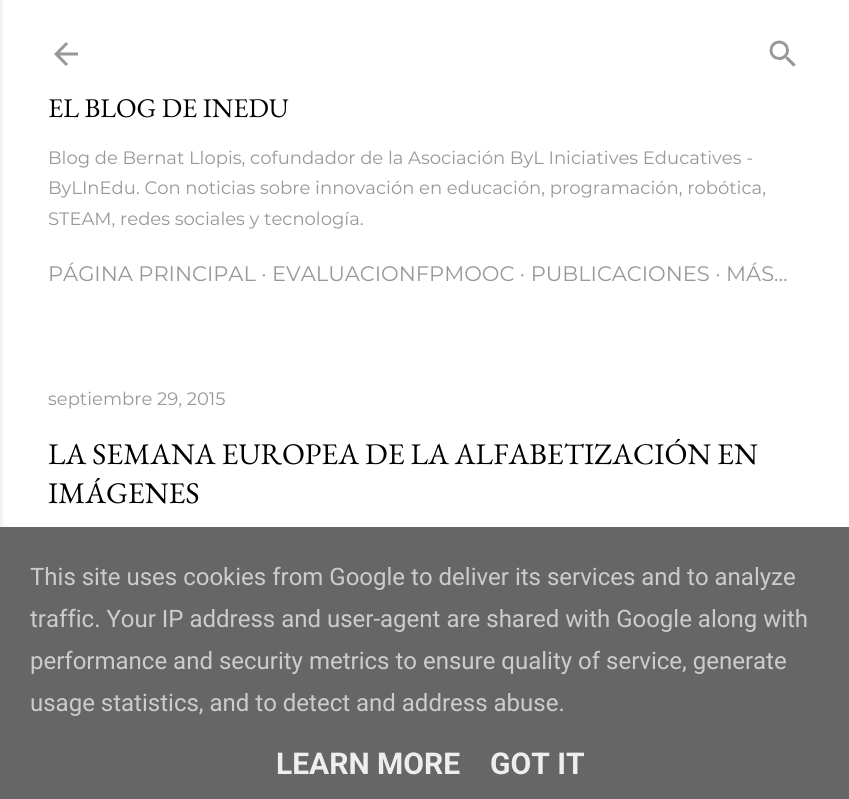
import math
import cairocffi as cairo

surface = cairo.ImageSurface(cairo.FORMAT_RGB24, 849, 799)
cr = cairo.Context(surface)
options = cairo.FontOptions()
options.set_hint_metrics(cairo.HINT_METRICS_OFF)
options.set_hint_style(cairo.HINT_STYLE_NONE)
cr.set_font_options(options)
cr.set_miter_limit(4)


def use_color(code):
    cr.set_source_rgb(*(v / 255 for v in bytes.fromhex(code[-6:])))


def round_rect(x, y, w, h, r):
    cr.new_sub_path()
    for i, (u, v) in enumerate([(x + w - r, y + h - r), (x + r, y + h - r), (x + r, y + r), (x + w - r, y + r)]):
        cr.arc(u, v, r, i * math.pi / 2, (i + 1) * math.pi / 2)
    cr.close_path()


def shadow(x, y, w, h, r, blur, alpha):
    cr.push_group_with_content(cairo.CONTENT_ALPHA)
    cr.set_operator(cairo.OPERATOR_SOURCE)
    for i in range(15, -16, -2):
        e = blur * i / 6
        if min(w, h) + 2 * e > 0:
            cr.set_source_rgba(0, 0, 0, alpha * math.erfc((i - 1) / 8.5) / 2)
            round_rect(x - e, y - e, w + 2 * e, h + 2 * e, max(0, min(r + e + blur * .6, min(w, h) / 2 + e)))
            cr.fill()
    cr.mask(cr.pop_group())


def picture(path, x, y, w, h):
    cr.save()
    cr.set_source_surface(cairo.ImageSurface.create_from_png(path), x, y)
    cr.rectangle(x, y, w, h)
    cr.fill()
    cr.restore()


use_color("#ffffff")
cr.paint()
use_color("#404040")
shadow(-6, 0, 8, 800, 0, 2, 0.1)
picture("img1.png", 54, 42, 24, 24)
picture("img2.png", 769, 40, 27, 27)
cr.select_font_face("EB Garamond")
cr.set_font_size(27)
use_color("#000000")
cr.move_to(48, 117)
cr.show_text("EL BLOG DE INEDU")
cr.select_font_face("Montserrat")
cr.set_font_size(18)
use_color("#989898")
cr.move_to(48, 164)
cr.show_text("Blog de Bernat Llopis, cofundador de la Asociación ByL Iniciatives Educatives -")
cr.move_to(48, 194)
cr.show_text("ByLInEdu. Con noticias sobre innovación en educación, programación, robótica,")
cr.move_to(48, 225)
cr.show_text("STEAM, redes sociales y tecnología.")
cr.set_font_size(21)
cr.move_to(48, 281)
cr.show_text("PÁGINA PRINCIPAL · EVALUACIONFPMOOC · PUBLICACIONES · MÁS…")
cr.set_font_size(18)
cr.move_to(48, 405)
cr.show_text("septiembre 29, 2015")
cr.select_font_face("EB Garamond")
cr.set_font_size(30)
use_color("#000000")
cr.move_to(48, 464)
cr.show_text("LA SEMANA EUROPEA DE LA ALFABETIZACIÓN EN")
cr.move_to(48, 503)
cr.show_text("IMÁGENES")
use_color("#666666")
cr.rectangle(0, 527, 849, 272)
cr.fill()
cr.select_font_face("Roboto")
cr.set_font_size(24)
use_color("#cccccc")
cr.move_to(30, 585)
cr.show_text("This site uses cookies from Google to deliver its services and to analyze")
cr.move_to(30, 627)
cr.show_text("traffic. Your IP address and user-agent are shared with Google along with")
cr.move_to(30, 669)
cr.show_text("performance and security metrics to ensure quality of service, generate")
cr.move_to(30, 711)
cr.show_text("usage statistics, and to detect and address abuse.")
cr.select_font_face("Roboto", cairo.FONT_SLANT_NORMAL, cairo.FONT_WEIGHT_BOLD)
cr.set_font_size(30)
use_color("#eeeeee")
cr.move_to(276, 774)
cr.show_text("LEARN MORE")
cr.move_to(490, 774)
cr.show_text("GOT IT")
surface.write_to_png("result.png")
